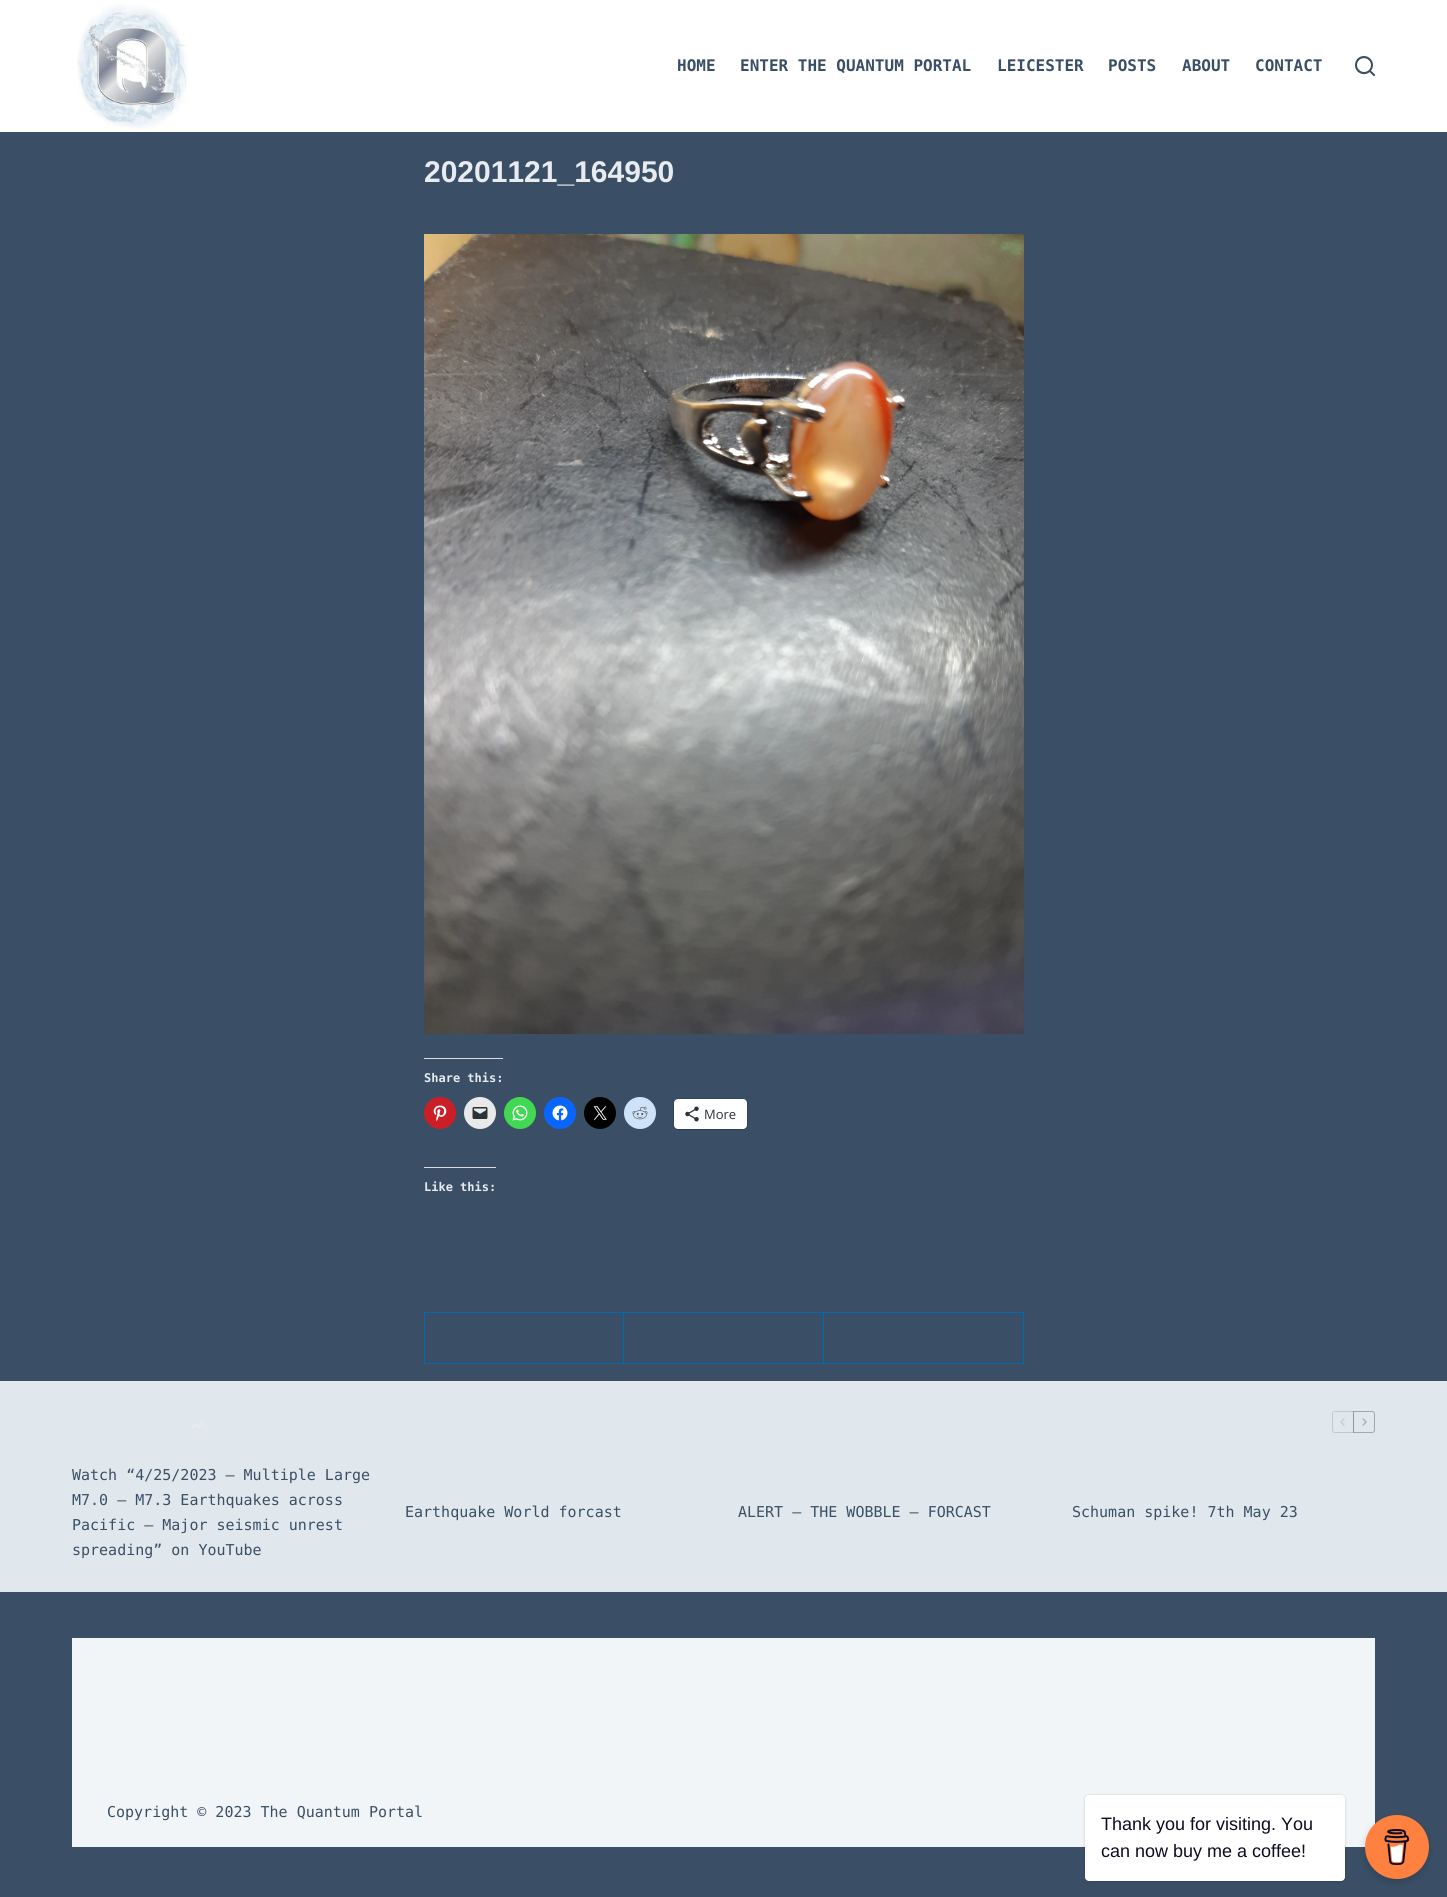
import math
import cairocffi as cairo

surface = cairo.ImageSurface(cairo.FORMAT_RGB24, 1447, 1897)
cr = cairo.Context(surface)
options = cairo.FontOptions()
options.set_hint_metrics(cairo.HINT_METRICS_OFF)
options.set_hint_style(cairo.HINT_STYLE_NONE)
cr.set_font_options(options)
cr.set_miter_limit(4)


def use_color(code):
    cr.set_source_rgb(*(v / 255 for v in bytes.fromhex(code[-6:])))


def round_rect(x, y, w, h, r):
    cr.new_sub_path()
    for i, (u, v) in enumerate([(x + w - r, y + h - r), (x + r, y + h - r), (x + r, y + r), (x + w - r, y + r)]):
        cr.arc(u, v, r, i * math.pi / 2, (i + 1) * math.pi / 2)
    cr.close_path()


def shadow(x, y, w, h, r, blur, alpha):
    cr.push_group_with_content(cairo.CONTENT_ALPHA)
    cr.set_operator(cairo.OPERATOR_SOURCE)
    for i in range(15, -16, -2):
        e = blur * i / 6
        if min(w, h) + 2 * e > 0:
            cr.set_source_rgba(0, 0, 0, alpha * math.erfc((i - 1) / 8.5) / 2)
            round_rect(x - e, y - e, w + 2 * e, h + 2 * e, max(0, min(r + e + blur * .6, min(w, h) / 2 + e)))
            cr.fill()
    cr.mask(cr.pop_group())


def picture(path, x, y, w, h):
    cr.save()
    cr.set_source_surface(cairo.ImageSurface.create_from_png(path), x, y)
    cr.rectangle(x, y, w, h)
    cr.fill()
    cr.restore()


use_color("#3a4f66")
cr.paint()
use_color("#ffffff")
cr.rectangle(0, 0, 1447, 132)
cr.fill()
picture("img1.png", 77, 4, 112, 126)
cr.select_font_face("DejaVu Sans Mono", cairo.FONT_SLANT_NORMAL, cairo.FONT_WEIGHT_BOLD)
cr.set_font_size(16)
use_color("#3a4f66")
cr.move_to(677, 71)
cr.show_text("HOME")
cr.move_to(740, 71)
cr.show_text("ENTER THE QUANTUM PORTAL")
cr.move_to(997, 71)
cr.show_text("LEICESTER")
cr.move_to(1108, 71)
cr.show_text("POSTS")
cr.move_to(1182, 71)
cr.show_text("ABOUT")
cr.move_to(1255, 71)
cr.show_text("CONTACT")
picture("img2.png", 1355, 56, 20, 20)
cr.select_font_face("Liberation Sans", cairo.FONT_SLANT_NORMAL, cairo.FONT_WEIGHT_BOLD)
cr.set_font_size(30)
use_color("#e8ecf0")
cr.move_to(424, 182)
cr.show_text("20201121_164950")
picture("img3.png", 424, 234, 600, 800)
use_color("#dcdcde")
cr.rectangle(424, 1058, 79, 1)
cr.fill()
cr.select_font_face("DejaVu Sans Mono", cairo.FONT_SLANT_NORMAL, cairo.FONT_WEIGHT_BOLD)
cr.set_font_size(12)
use_color("#e8ecf0")
cr.move_to(424, 1082)
cr.show_text("Share this:")
use_color("#ca1f27")
cr.new_path()
cr.arc(440, 1113, 16, 0, 2 * math.pi)
cr.fill()
picture("img4.png", 433, 1105, 14, 16)
use_color("#e9e9e9")
cr.arc(480, 1113, 16, 0, 2 * math.pi)
cr.fill()
picture("img5.png", 472, 1107, 16, 12)
use_color("#43d854")
cr.arc(520, 1113, 16, 0, 2 * math.pi)
cr.fill()
picture("img6.png", 512, 1105, 16, 16)
use_color("#0866ff")
cr.arc(560, 1113, 16, 0, 2 * math.pi)
cr.fill()
picture("img7.png", 552, 1105, 16, 16)
use_color("#000000")
cr.arc(600, 1113, 16, 0, 2 * math.pi)
cr.fill()
picture("img8.png", 593, 1106, 14, 14)
use_color("#cee3f8")
cr.arc(640, 1113, 16, 0, 2 * math.pi)
cr.fill()
picture("img9.png", 632, 1106, 16, 14)
round_rect(673.5, 1098.5, 74, 31, 4.5)
use_color("#33465a")
cr.set_line_width(1)
cr.stroke()
use_color("#000000")
shadow(674, 1100, 73, 30, 4, 1, 0.12)
use_color("#ffffff")
round_rect(674, 1099, 73, 30, 4)
cr.fill()
picture("img10.png", 685, 1106, 14, 16)
cr.select_font_face("Open Sans")
cr.set_font_size(13)
use_color("#2c3338")
cr.move_to(704, 1119)
cr.show_text("More")
use_color("#dcdcde")
cr.rectangle(424, 1167, 72, 1)
cr.fill()
cr.select_font_face("DejaVu Sans Mono", cairo.FONT_SLANT_NORMAL, cairo.FONT_WEIGHT_BOLD)
cr.set_font_size(12)
use_color("#e8ecf0")
cr.move_to(424, 1191)
cr.show_text("Like this:")
use_color("#0269b3")
cr.rectangle(424, 1312, 600, 1)
cr.fill()
cr.rectangle(424, 1312, 1, 52)
cr.fill()
cr.rectangle(623, 1313, 1, 51)
cr.fill()
cr.rectangle(425, 1363, 199, 1)
cr.fill()
cr.rectangle(823, 1313, 1, 51)
cr.fill()
cr.rectangle(624, 1363, 200, 1)
cr.fill()
cr.rectangle(1023, 1313, 1, 51)
cr.fill()
cr.rectangle(824, 1363, 200, 1)
cr.fill()
use_color("#e1e8ed")
cr.rectangle(0, 1381, 1447, 211)
cr.fill()
picture("img11.png", 191, 1421, 13, 8)
cr.new_path()
cr.move_to(1335, 1411.5)
cr.line_to(1353.5, 1411.5)
cr.line_to(1353.5, 1432.5)
cr.line_to(1335, 1432.5)
cr.curve_to(1333.5, 1432.5, 1332.5, 1431.5, 1332.5, 1430)
cr.line_to(1332.5, 1414)
cr.curve_to(1332.5, 1412.5, 1333.5, 1411.5, 1335, 1411.5)
cr.close_path()
use_color("#c0c9d2")
cr.stroke()
picture("img12.png", 1340, 1418, 5, 8)
cr.new_path()
cr.move_to(1353.5, 1411.5)
cr.line_to(1372, 1411.5)
cr.curve_to(1373.5, 1411.5, 1374.5, 1412.5, 1374.5, 1414)
cr.line_to(1374.5, 1430)
cr.curve_to(1374.5, 1431.5, 1373.5, 1432.5, 1372, 1432.5)
cr.line_to(1353.5, 1432.5)
cr.close_path()
cr.set_source_rgba(0.227, 0.31, 0.4, 0.4)
cr.stroke()
picture("img13.png", 1362, 1418, 5, 8)
cr.select_font_face("DejaVu Sans Mono")
cr.set_font_size(15)
use_color("#3a4f66")
cr.move_to(72, 1480)
cr.show_text("Watch “4/25/2023 — Multiple Large")
cr.move_to(72, 1505)
cr.show_text("M7.0 – M7.3 Earthquakes across")
cr.move_to(72, 1530)
cr.show_text("Pacific — Major seismic unrest")
cr.move_to(72, 1555)
cr.show_text("spreading” on YouTube")
cr.move_to(405, 1517)
cr.show_text("Earthquake World forcast")
cr.move_to(738, 1517)
cr.show_text("ALERT – THE WOBBLE – FORCAST")
cr.move_to(1072, 1517)
cr.show_text("Schuman spike! 7th May 23")
use_color("#f2f5f7")
cr.rectangle(72, 1638, 1303, 209)
cr.fill()
use_color("#3a4f66")
cr.move_to(107, 1817)
cr.show_text("Copyright © 2023 The Quantum Portal")
use_color("#000000")
shadow(1085, 1795, 260, 86, 4, 1, 0.15)
shadow(1085, 1797, 260, 86, 4, 2.5, 0.05)
use_color("#ffffff")
round_rect(1085, 1795, 260, 86, 4)
cr.fill()
cr.select_font_face("Liberation Sans")
cr.set_font_size(18)
use_color("#0d0c22")
cr.move_to(1101, 1830)
cr.show_text("Thank you for visiting. You")
cr.move_to(1101, 1857)
cr.show_text("can now buy me a coffee!")
use_color("#000000")
shadow(1365, 1819, 64, 64, 32, 4, 0.15)
use_color("#ff813f")
cr.arc(1397, 1847, 32, 0, 2 * math.pi)
cr.fill()
picture("img14.png", 1384, 1829, 26, 36)
surface.write_to_png("result.png")
